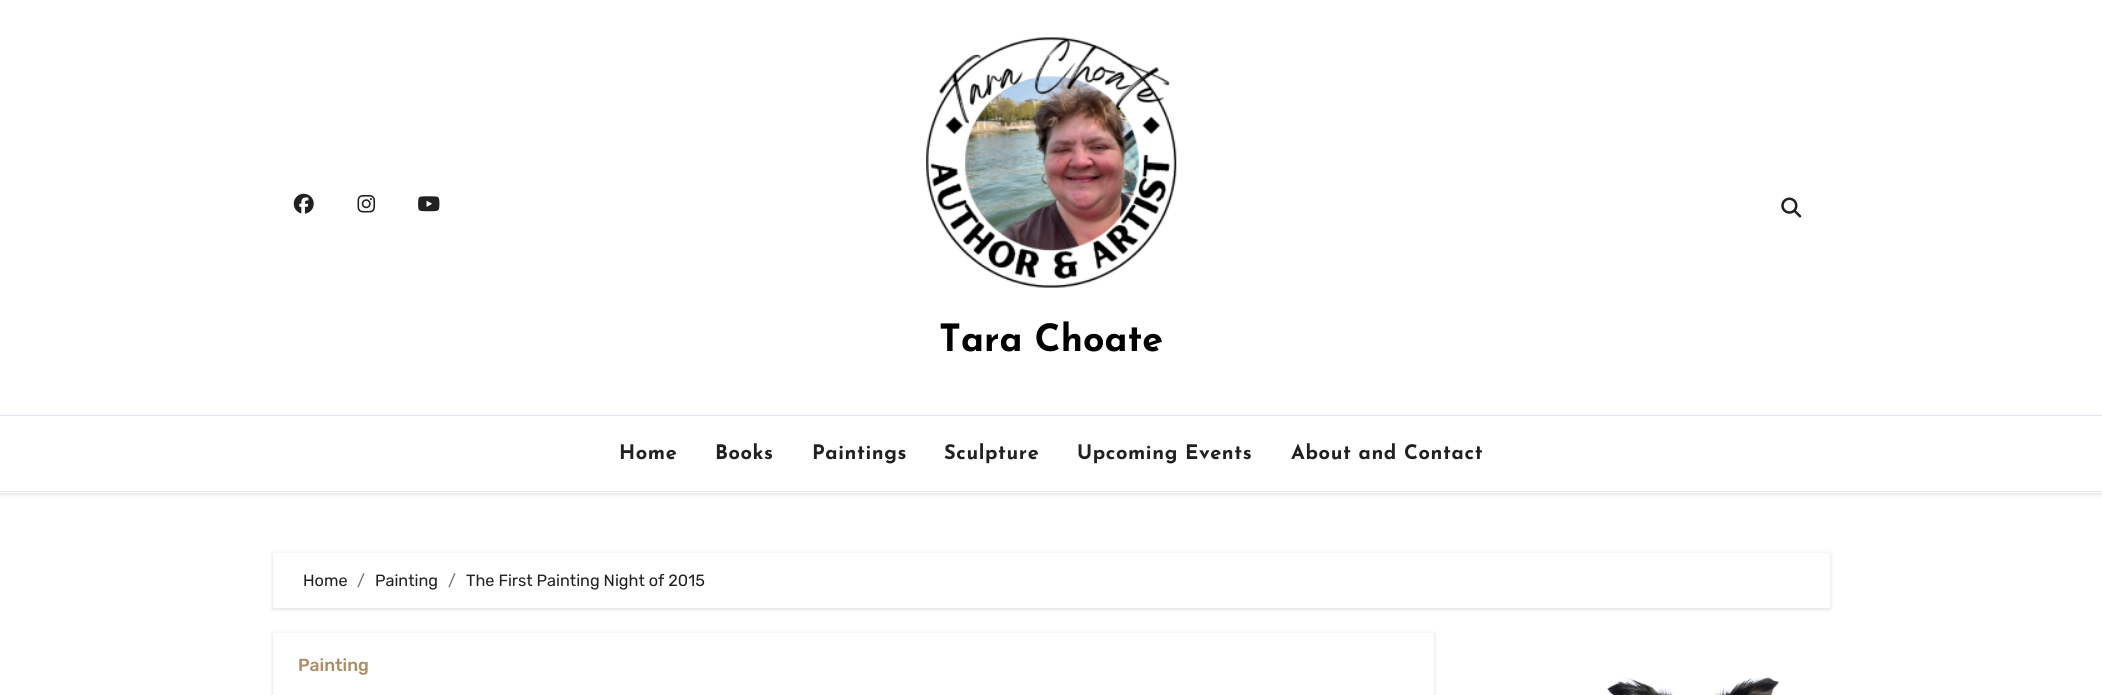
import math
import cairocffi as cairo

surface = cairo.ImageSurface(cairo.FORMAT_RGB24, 2102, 695)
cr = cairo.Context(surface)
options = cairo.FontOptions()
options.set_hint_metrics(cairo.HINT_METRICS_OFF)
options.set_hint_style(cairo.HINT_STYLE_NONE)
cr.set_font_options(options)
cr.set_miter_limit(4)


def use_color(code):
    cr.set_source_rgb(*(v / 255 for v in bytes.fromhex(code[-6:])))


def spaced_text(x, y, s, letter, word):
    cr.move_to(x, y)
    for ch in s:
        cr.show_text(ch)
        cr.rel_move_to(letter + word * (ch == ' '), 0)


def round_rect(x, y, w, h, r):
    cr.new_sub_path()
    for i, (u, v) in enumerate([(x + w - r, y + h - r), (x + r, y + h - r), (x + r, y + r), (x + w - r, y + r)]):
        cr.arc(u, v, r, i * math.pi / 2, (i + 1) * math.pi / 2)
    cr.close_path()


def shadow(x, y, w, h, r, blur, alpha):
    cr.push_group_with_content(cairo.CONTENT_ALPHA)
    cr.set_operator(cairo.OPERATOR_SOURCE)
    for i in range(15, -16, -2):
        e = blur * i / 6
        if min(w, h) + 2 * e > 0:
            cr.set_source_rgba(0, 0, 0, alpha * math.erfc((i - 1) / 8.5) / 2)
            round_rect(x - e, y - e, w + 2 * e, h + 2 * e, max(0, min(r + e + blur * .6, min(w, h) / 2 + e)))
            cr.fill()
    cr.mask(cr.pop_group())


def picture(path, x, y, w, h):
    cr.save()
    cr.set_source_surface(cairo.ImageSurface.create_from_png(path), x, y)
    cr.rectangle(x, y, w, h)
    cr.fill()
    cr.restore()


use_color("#ffffff")
cr.paint()
picture("img1.png", 293, 193, 21, 21)
picture("img2.png", 357, 195, 18, 18)
picture("img3.png", 418, 196, 22, 16)
picture("img4.png", 1781, 197, 21, 21)
picture("img5.png", 926, 37, 251, 251)
cr.select_font_face("Josefin Sans", cairo.FONT_SLANT_NORMAL, cairo.FONT_WEIGHT_BOLD)
cr.set_font_size(37.5)
use_color("#000000")
cr.move_to(939, 351)
cr.show_text("Tara Choate")
cr.save()
cr.set_fill_rule(cairo.FILL_RULE_EVEN_ODD)
cr.new_path()
cr.move_to(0, 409)
cr.line_to(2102, 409)
cr.line_to(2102, 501)
cr.line_to(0, 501)
cr.close_path()
cr.move_to(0, 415)
cr.line_to(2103, 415)
cr.line_to(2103, 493)
cr.line_to(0, 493)
cr.close_path()
cr.clip()
use_color("#000000")
shadow(0, 416, 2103, 78, 0, 2, 0.15)
cr.restore()
use_color("#e2e8f0")
cr.rectangle(0, 415, 2102, 1)
cr.fill()
cr.rectangle(0, 491, 2102, 1)
cr.fill()
cr.set_font_size(20)
use_color("#212121")
spaced_text(619, 459, "Home", 0.6, 0)
spaced_text(715, 459, "Books", 0.6, 0)
spaced_text(812, 459, "Paintings", 0.6, 0)
spaced_text(944, 459, "Sculpture", 0.6, 0)
spaced_text(1077, 459, "Upcoming Events", 0.6, 0)
spaced_text(1291, 459, "About and Contact", 0.6, 0)
use_color("#000000")
shadow(273, 554, 1557, 55, 0, 2, 0.15)
use_color("#ffffff")
cr.rectangle(273, 553, 1557, 55)
cr.fill()
cr.select_font_face("Rubik Light")
cr.set_font_size(16.25)
use_color("#212121")
cr.move_to(303, 586)
cr.show_text("Home")
use_color("#6c757d")
cr.move_to(357, 586)
cr.show_text("/")
use_color("#212121")
cr.move_to(375, 586)
cr.show_text("Painting")
use_color("#6c757d")
cr.move_to(448, 586)
cr.show_text("/")
use_color("#212121")
cr.move_to(466, 586)
cr.show_text("The First Painting Night of 2015")
cr.save()
cr.set_fill_rule(cairo.FILL_RULE_EVEN_ODD)
cr.new_path()
cr.move_to(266, 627)
cr.line_to(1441, 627)
cr.line_to(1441, 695)
cr.line_to(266, 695)
cr.close_path()
cr.move_to(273, 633)
cr.line_to(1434, 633)
cr.line_to(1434, 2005)
cr.line_to(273, 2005)
cr.close_path()
cr.clip()
use_color("#000000")
shadow(273, 634, 1161, 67, 0, 2, 0.15)
cr.restore()
cr.select_font_face("Rubik Medium")
cr.set_font_size(17.5)
use_color("#ad8c62")
cr.move_to(298, 671)
cr.show_text("Painting")
picture("img6.png", 1607, 677, 172, 18)
surface.write_to_png("result.png")
